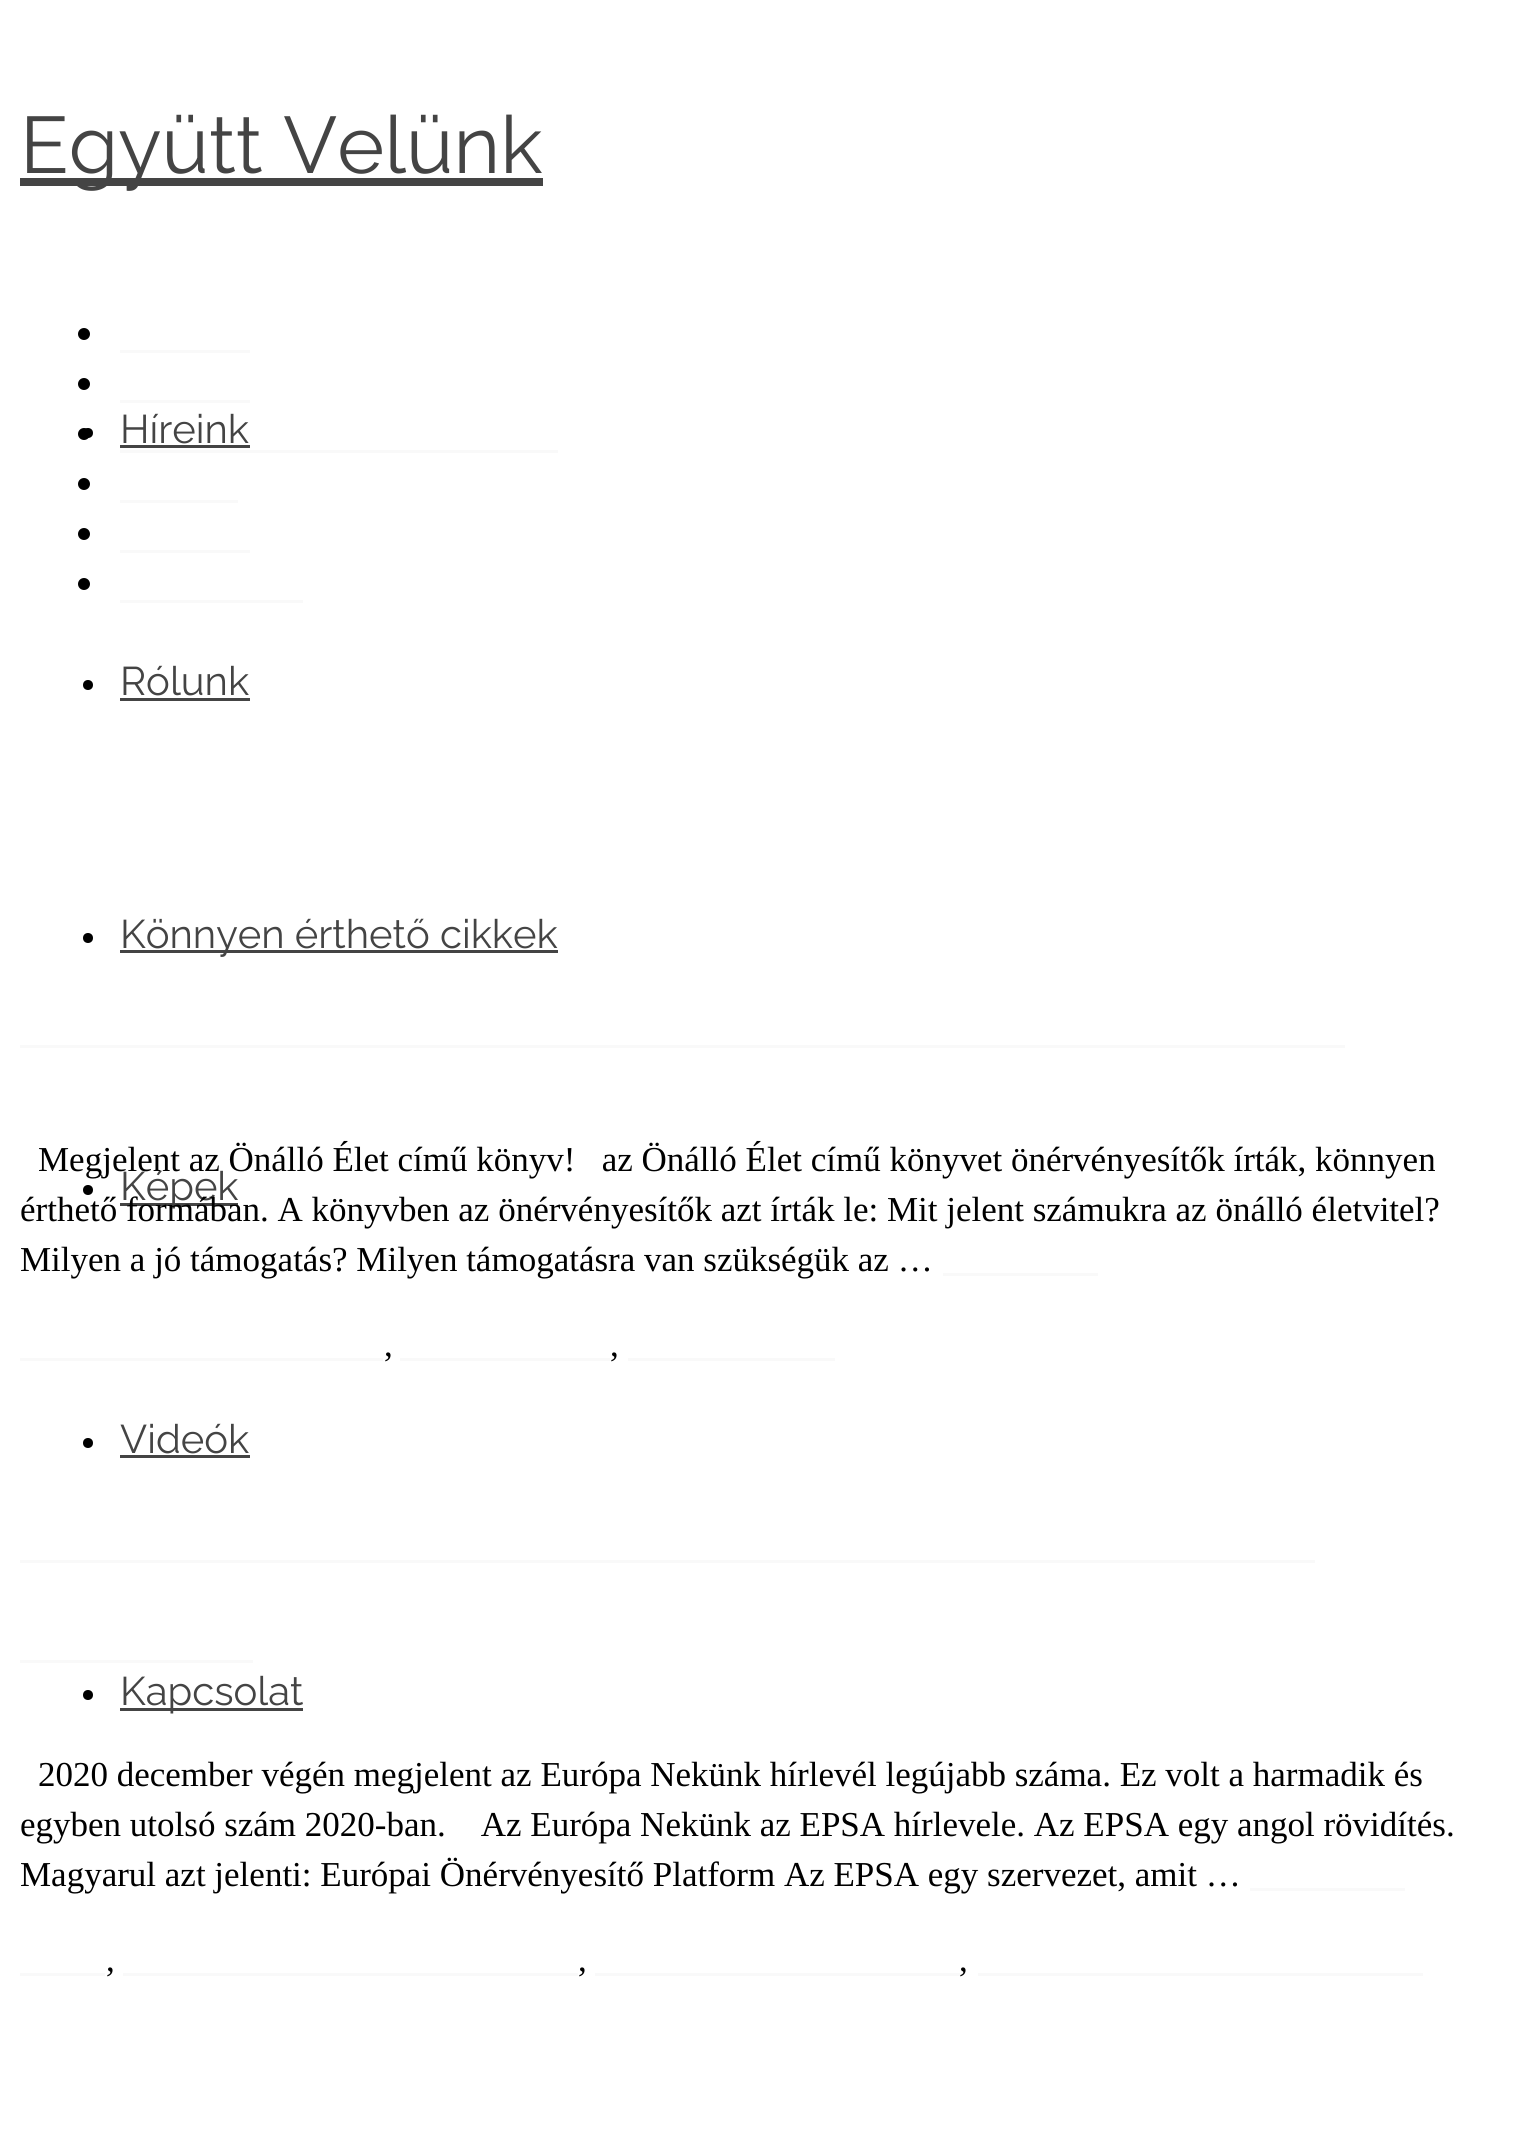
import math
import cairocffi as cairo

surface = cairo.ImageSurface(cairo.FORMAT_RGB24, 1519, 2140)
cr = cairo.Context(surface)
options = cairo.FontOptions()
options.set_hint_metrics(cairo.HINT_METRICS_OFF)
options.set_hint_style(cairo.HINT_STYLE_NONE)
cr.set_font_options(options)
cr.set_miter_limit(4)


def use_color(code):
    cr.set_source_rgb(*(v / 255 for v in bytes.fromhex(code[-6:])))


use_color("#ffffff")
cr.paint()
use_color("#444444")
cr.rectangle(20, 178, 523, 8)
cr.fill()
cr.select_font_face("Raleway")
cr.set_font_size(80)
cr.move_to(20, 173)
cr.show_text("Együtt Velünk")
use_color("#000000")
cr.new_path()
cr.arc(88, 433, 5, 0, 2 * math.pi)
cr.fill()
cr.set_font_size(40)
use_color("#444444")
cr.move_to(120, 443)
cr.show_text("Híreink")
cr.rectangle(120, 445, 130, 3)
cr.fill()
use_color("#000000")
cr.arc(88, 685, 5, 0, 2 * math.pi)
cr.fill()
use_color("#444444")
cr.move_to(120, 695)
cr.show_text("Rólunk")
cr.rectangle(120, 698, 130, 3)
cr.fill()
use_color("#000000")
cr.arc(88, 938, 5, 0, 2 * math.pi)
cr.fill()
use_color("#444444")
cr.rectangle(120, 950, 438, 3)
cr.fill()
cr.move_to(120, 948)
cr.show_text("Könnyen érthető cikkek")
use_color("#000000")
cr.new_path()
cr.arc(88, 1190, 5, 0, 2 * math.pi)
cr.fill()
use_color("#444444")
cr.rectangle(120, 1203, 118, 3)
cr.fill()
cr.move_to(120, 1200)
cr.show_text("Képek")
use_color("#000000")
cr.new_path()
cr.arc(88, 1443, 5, 0, 2 * math.pi)
cr.fill()
use_color("#444444")
cr.move_to(120, 1453)
cr.show_text("Videók")
cr.rectangle(120, 1455, 130, 3)
cr.fill()
use_color("#000000")
cr.arc(88, 1695, 5, 0, 2 * math.pi)
cr.fill()
use_color("#444444")
cr.rectangle(120, 1708, 183, 3)
cr.fill()
cr.move_to(120, 1705)
cr.show_text("Kapcsolat")
use_color("#000000")
cr.new_path()
cr.arc(84, 334, 6, 0, 2 * math.pi)
cr.fill()
use_color("#f9f9f9")
cr.rectangle(120, 350, 130, 3)
cr.fill()
use_color("#000000")
cr.arc(84, 384, 6, 0, 2 * math.pi)
cr.fill()
use_color("#f9f9f9")
cr.rectangle(120, 400, 130, 3)
cr.fill()
use_color("#000000")
cr.arc(84, 434, 6, 0, 2 * math.pi)
cr.fill()
use_color("#f9f9f9")
cr.rectangle(120, 450, 438, 3)
cr.fill()
use_color("#000000")
cr.arc(84, 484, 6, 0, 2 * math.pi)
cr.fill()
use_color("#f9f9f9")
cr.rectangle(120, 500, 118, 3)
cr.fill()
use_color("#000000")
cr.arc(84, 534, 6, 0, 2 * math.pi)
cr.fill()
use_color("#f9f9f9")
cr.rectangle(120, 550, 130, 3)
cr.fill()
use_color("#000000")
cr.arc(84, 584, 6, 0, 2 * math.pi)
cr.fill()
use_color("#f9f9f9")
cr.rectangle(120, 600, 183, 3)
cr.fill()
cr.rectangle(20, 1045, 1325, 3)
cr.fill()
cr.select_font_face("Liberation Serif")
cr.set_font_size(35)
use_color("#000000")
cr.move_to(38, 1171)
cr.show_text("Megjelent az Önálló Élet című könyv!   az Önálló Élet című könyvet önérvényesítők írták, könnyen")
cr.move_to(20, 1221)
cr.show_text("érthető formában. A könyvben az önérvényesítők azt írták le: Mit jelent számukra az önálló életvitel?")
cr.move_to(20, 1271)
cr.show_text("Milyen a jó támogatás? Milyen támogatásra van szükségük az …")
use_color("#f9f9f9")
cr.rectangle(943, 1273, 155, 3)
cr.fill()
use_color("#000000")
cr.move_to(384, 1356)
cr.show_text(",")
use_color("#f9f9f9")
cr.rectangle(20, 1358, 363, 3)
cr.fill()
use_color("#000000")
cr.move_to(610, 1356)
cr.show_text(",")
use_color("#f9f9f9")
cr.rectangle(400, 1358, 210, 3)
cr.fill()
cr.rectangle(628, 1358, 207, 3)
cr.fill()
cr.rectangle(20, 1560, 1295, 3)
cr.fill()
cr.rectangle(20, 1660, 233, 3)
cr.fill()
use_color("#000000")
cr.move_to(38, 1786)
cr.show_text("2020 december végén megjelent az Európa Nekünk hírlevél legújabb száma. Ez volt a harmadik és")
cr.move_to(20, 1836)
cr.show_text("egyben utolsó szám 2020-ban.    Az Európa Nekünk az EPSA hírlevele. Az EPSA egy angol rövidítés.")
cr.move_to(20, 1886)
cr.show_text("Magyarul azt jelenti: Európai Önérvényesítő Platform Az EPSA egy szervezet, amit …")
use_color("#f9f9f9")
cr.rectangle(1250, 1888, 155, 3)
cr.fill()
use_color("#000000")
cr.move_to(106, 1971)
cr.show_text(",")
use_color("#f9f9f9")
cr.rectangle(20, 1973, 85, 3)
cr.fill()
use_color("#000000")
cr.move_to(578, 1971)
cr.show_text(",")
use_color("#f9f9f9")
cr.rectangle(123, 1973, 455, 3)
cr.fill()
use_color("#000000")
cr.move_to(959, 1971)
cr.show_text(",")
use_color("#f9f9f9")
cr.rectangle(595, 1973, 365, 3)
cr.fill()
cr.rectangle(978, 1973, 445, 3)
cr.fill()
surface.write_to_png("result.png")
